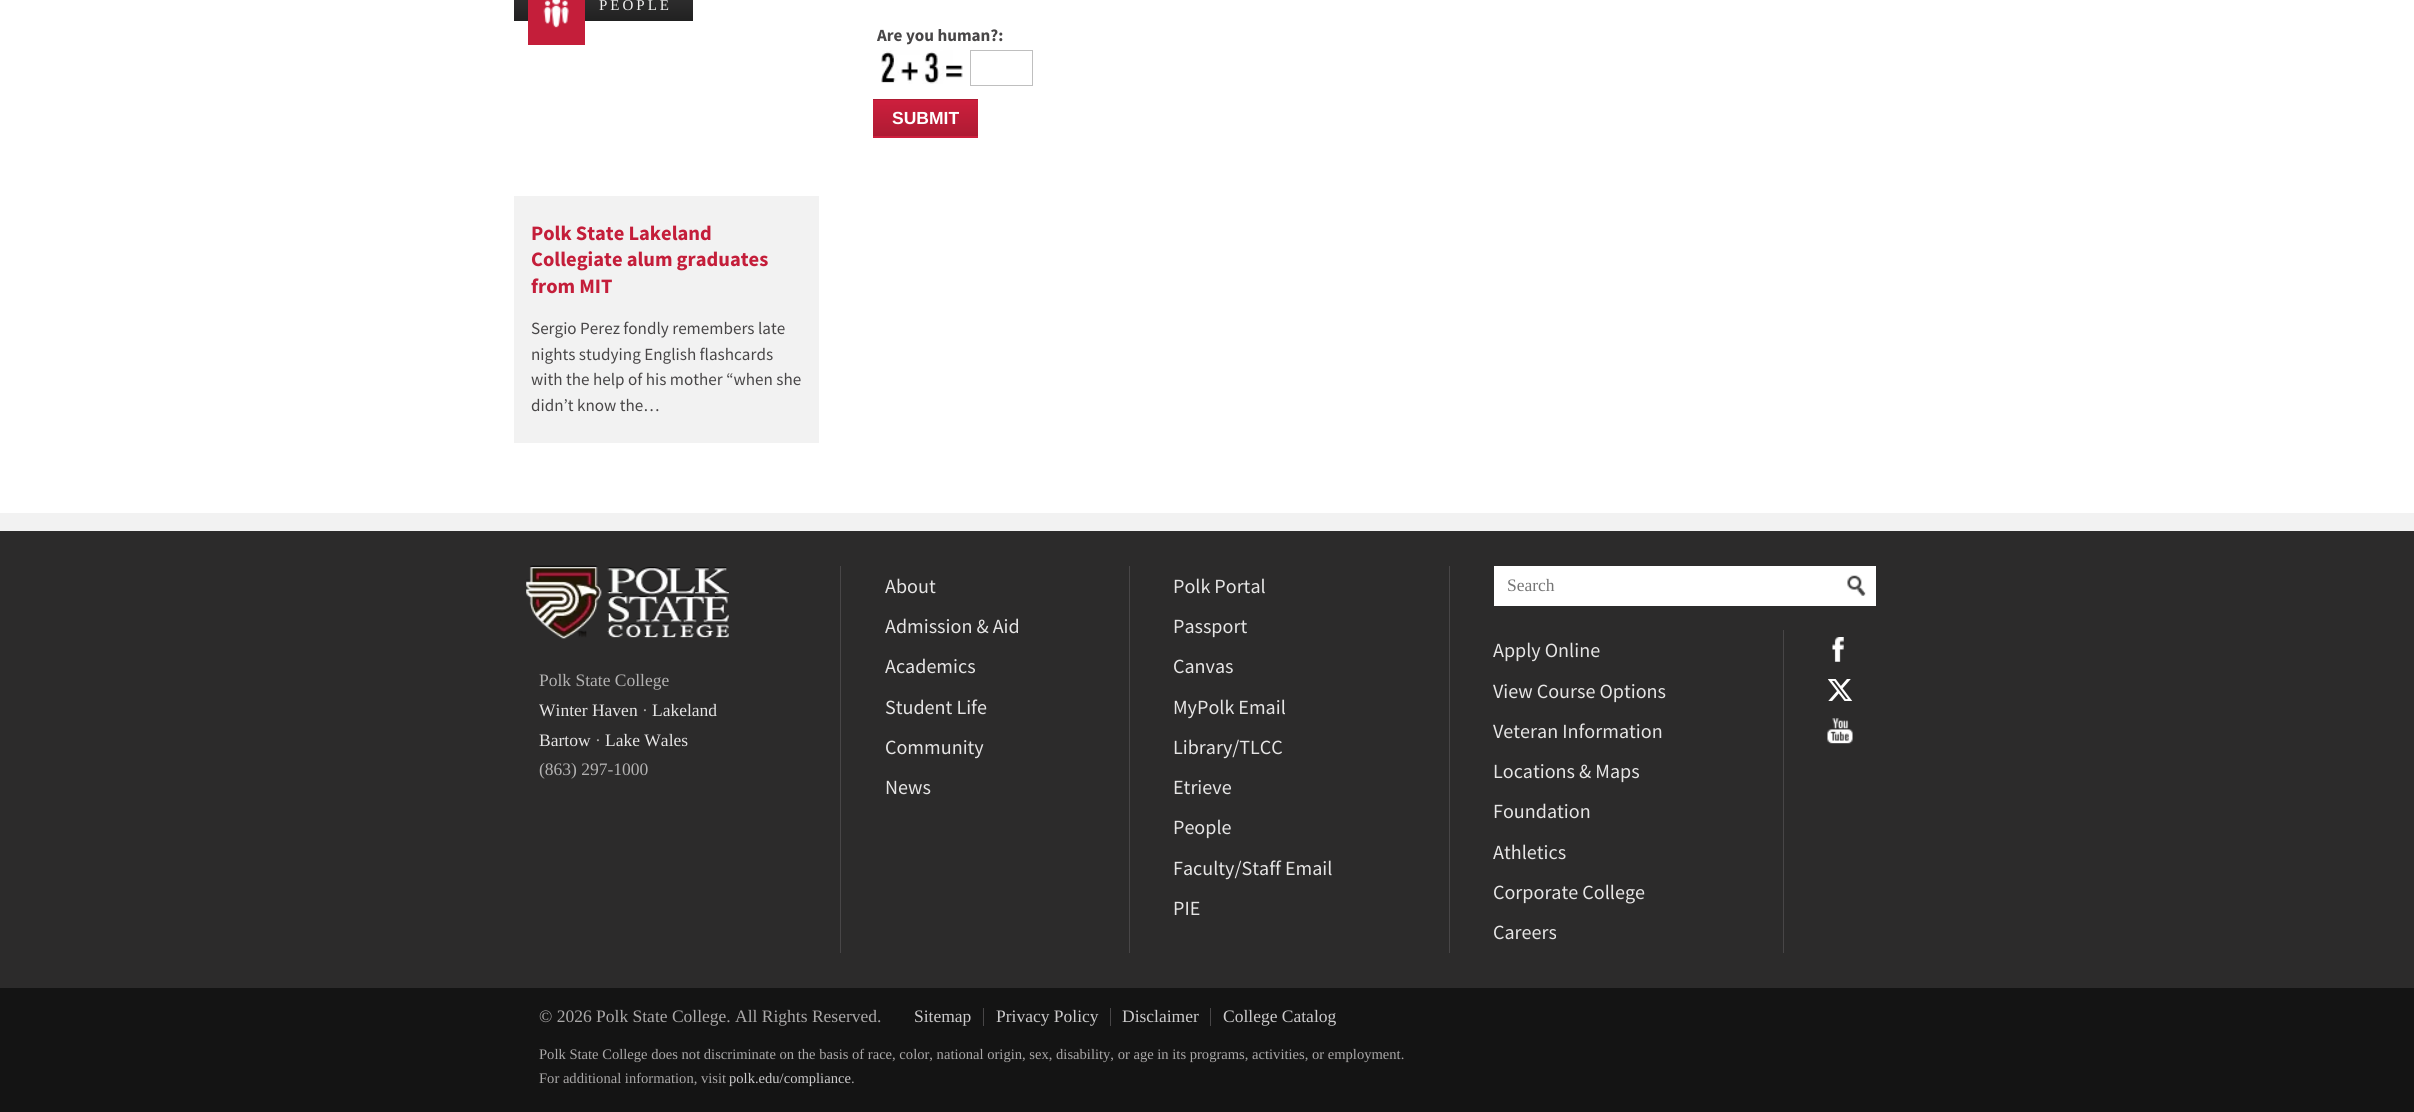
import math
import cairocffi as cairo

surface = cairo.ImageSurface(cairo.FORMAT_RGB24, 2414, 1112)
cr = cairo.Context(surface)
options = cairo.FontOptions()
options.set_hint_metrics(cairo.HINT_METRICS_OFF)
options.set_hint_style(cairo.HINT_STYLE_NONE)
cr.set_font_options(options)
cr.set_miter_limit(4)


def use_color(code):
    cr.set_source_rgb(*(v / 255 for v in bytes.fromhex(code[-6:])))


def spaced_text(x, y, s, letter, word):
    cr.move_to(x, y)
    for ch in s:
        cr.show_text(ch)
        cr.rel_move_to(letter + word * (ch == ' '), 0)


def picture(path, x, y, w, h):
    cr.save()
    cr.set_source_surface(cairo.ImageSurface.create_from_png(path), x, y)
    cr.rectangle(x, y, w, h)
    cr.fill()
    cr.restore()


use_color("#141414")
cr.paint()
use_color("#ffffff")
cr.rectangle(0, 0, 2414, 513)
cr.fill()
use_color("#f2f2f2")
cr.rectangle(0, 513, 2414, 18)
cr.fill()
gradient = cairo.LinearGradient(603, -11, 603, 21)
gradient.add_color_stop_rgba(0, 0.2, 0.196, 0.2, 1)
gradient.add_color_stop_rgba(1, 0.129, 0.129, 0.129, 1)
cr.set_source(gradient)
cr.rectangle(514, 0, 179, 21)
cr.fill()
use_color("#c41e3a")
cr.rectangle(528, 0, 57, 45)
cr.fill()
picture("img1.png", 543, 0, 26, 28)
cr.select_font_face("Liberation Serif")
cr.set_font_size(15)
use_color("#f2f2f2")
spaced_text(599, 10, "PEOPLE", 3, 0)
cr.rectangle(514, 196, 305, 247)
cr.fill()
cr.select_font_face("Source Sans Pro", cairo.FONT_SLANT_NORMAL, cairo.FONT_WEIGHT_BOLD)
cr.set_font_size(20.5)
use_color("#c41e3a")
cr.move_to(531, 240)
cr.show_text("Polk State Lakeland")
cr.move_to(531, 266)
cr.show_text("Collegiate alum graduates")
cr.move_to(531, 293)
cr.show_text("from MIT")
cr.select_font_face("Source Sans Pro")
cr.set_font_size(17.1)
use_color("#484647")
cr.move_to(531, 334)
cr.show_text("Sergio Perez fondly remembers late")
cr.move_to(531, 360)
cr.show_text("nights studying English flashcards")
cr.move_to(531, 385)
cr.show_text("with the help of his mother “when she")
cr.move_to(531, 411)
cr.show_text("didn’t know the…")
cr.select_font_face("Source Sans Pro", cairo.FONT_SLANT_NORMAL, cairo.FONT_WEIGHT_BOLD)
cr.move_to(877, 41)
cr.show_text("Are you human?:")
picture("img2.png", 881, 50, 82, 34)
cr.rectangle(970.5, 50.5, 62, 35)
use_color("#bfbfbf")
cr.set_line_width(1)
cr.stroke()
gradient = cairo.LinearGradient(925, 64, 925, 100)
gradient.add_color_stop_rgba(0, 0.804, 0.122, 0.239, 1)
gradient.add_color_stop_rgba(1, 0.682, 0.106, 0.2, 1)
cr.set_source(gradient)
cr.rectangle(873, 99, 105, 1)
cr.fill()
gradient = cairo.LinearGradient(925, 100, 925, 136)
gradient.add_color_stop_rgba(0, 0.804, 0.122, 0.239, 1)
gradient.add_color_stop_rgba(1, 0.682, 0.106, 0.2, 1)
cr.set_source(gradient)
cr.rectangle(873, 100, 105, 36)
cr.fill()
gradient = cairo.LinearGradient(925, 136, 925, 173)
gradient.add_color_stop_rgba(0, 0.804, 0.122, 0.239, 1)
gradient.add_color_stop_rgba(1, 0.682, 0.106, 0.2, 1)
cr.set_source(gradient)
cr.rectangle(873, 136, 105, 2)
cr.fill()
cr.select_font_face("Liberation Sans", cairo.FONT_SLANT_NORMAL, cairo.FONT_WEIGHT_BOLD)
cr.set_font_size(17.5)
use_color("#ffffff")
cr.move_to(892, 124)
cr.show_text("SUBMIT")
use_color("#2c2b2b")
cr.rectangle(0, 531, 2414, 457)
cr.fill()
picture("img3.png", 526, 565, 203, 74)
cr.select_font_face("Liberation Serif")
use_color("#b3b2b2")
cr.move_to(539, 686)
cr.show_text("Polk State College")
use_color("#e6e5e5")
cr.move_to(539, 716)
cr.show_text("Winter Haven")
use_color("#b3b2b2")
cr.move_to(642, 716)
cr.show_text("·")
use_color("#e6e5e5")
cr.move_to(652, 716)
cr.show_text("Lakeland")
cr.move_to(539, 746)
cr.show_text("Bartow")
use_color("#b3b2b2")
cr.move_to(595, 746)
cr.show_text("·")
use_color("#e6e5e5")
cr.move_to(605, 746)
cr.show_text("Lake Wales")
use_color("#b3b2b2")
cr.move_to(539, 775)
cr.show_text("(863) 297-1000")
use_color("#484647")
cr.rectangle(840, 566, 1, 387)
cr.fill()
cr.select_font_face("Source Sans Pro")
cr.set_font_size(20.1)
use_color("#e6e5e5")
cr.move_to(885, 593)
cr.show_text("About")
cr.move_to(885, 633)
cr.show_text("Admission & Aid")
cr.move_to(885, 673)
cr.show_text("Academics")
cr.move_to(885, 714)
cr.show_text("Student Life")
cr.move_to(885, 754)
cr.show_text("Community")
cr.move_to(885, 794)
cr.show_text("News")
use_color("#484647")
cr.rectangle(1129, 566, 1, 387)
cr.fill()
use_color("#e6e5e5")
cr.move_to(1173, 593)
cr.show_text("Polk Portal")
cr.move_to(1173, 633)
cr.show_text("Passport")
cr.move_to(1173, 673)
cr.show_text("Canvas")
cr.move_to(1173, 714)
cr.show_text("MyPolk Email")
cr.move_to(1173, 754)
cr.show_text("Library/TLCC")
cr.move_to(1173, 794)
cr.show_text("Etrieve")
cr.move_to(1173, 834)
cr.show_text("People")
cr.move_to(1173, 875)
cr.show_text("Faculty/Staff Email")
cr.move_to(1173, 915)
cr.show_text("PIE")
use_color("#484647")
cr.rectangle(1449, 566, 1, 387)
cr.fill()
use_color("#ffffff")
cr.rectangle(1494, 566, 382, 40)
cr.fill()
cr.select_font_face("Liberation Serif")
cr.set_font_size(17.5)
use_color("#757575")
cr.move_to(1507, 591)
cr.show_text("Search")
picture("img4.png", 1847, 575, 19, 21)
cr.select_font_face("Source Sans Pro")
cr.set_font_size(20.1)
use_color("#e6e5e5")
cr.move_to(1493, 657)
cr.show_text("Apply Online")
cr.move_to(1493, 698)
cr.show_text("View Course Options")
cr.move_to(1493, 738)
cr.show_text("Veteran Information")
cr.move_to(1493, 778)
cr.show_text("Locations & Maps")
cr.move_to(1493, 818)
cr.show_text("Foundation")
cr.move_to(1493, 859)
cr.show_text("Athletics")
cr.move_to(1493, 899)
cr.show_text("Corporate College")
cr.move_to(1493, 939)
cr.show_text("Careers")
use_color("#484647")
cr.rectangle(1783, 630, 1, 323)
cr.fill()
picture("img5.png", 1832, 637, 12, 25)
picture("img6.png", 1828, 679, 25, 22)
picture("img7.png", 1827, 718, 26, 26)
cr.select_font_face("Liberation Serif")
cr.set_font_size(17.5)
use_color("#aaa8a8")
cr.move_to(539, 1022)
cr.show_text("© 2026 Polk State College. All Rights Reserved.")
use_color("#cccbcc")
cr.move_to(914, 1022)
cr.show_text("Sitemap")
cr.move_to(996, 1022)
cr.show_text("Privacy Policy")
use_color("#484647")
cr.rectangle(983, 1008, 1, 18)
cr.fill()
use_color("#cccbcc")
cr.move_to(1122, 1022)
cr.show_text("Disclaimer")
use_color("#484647")
cr.rectangle(1110, 1008, 1, 18)
cr.fill()
use_color("#cccbcc")
cr.move_to(1223, 1022)
cr.show_text("College Catalog")
use_color("#484647")
cr.rectangle(1210, 1008, 1, 18)
cr.fill()
cr.set_font_size(14.58)
use_color("#aaa8a8")
cr.move_to(539, 1059)
cr.show_text("Polk State College does not discriminate on the basis of race, color, national origin, sex, disability, or age in its programs, activities, or employment.")
cr.move_to(539, 1083)
cr.show_text("For additional information, visit")
use_color("#cccbcc")
cr.move_to(729, 1083)
cr.show_text("polk.edu/compliance")
use_color("#aaa8a8")
cr.move_to(851, 1083)
cr.show_text(".")
surface.write_to_png("result.png")
